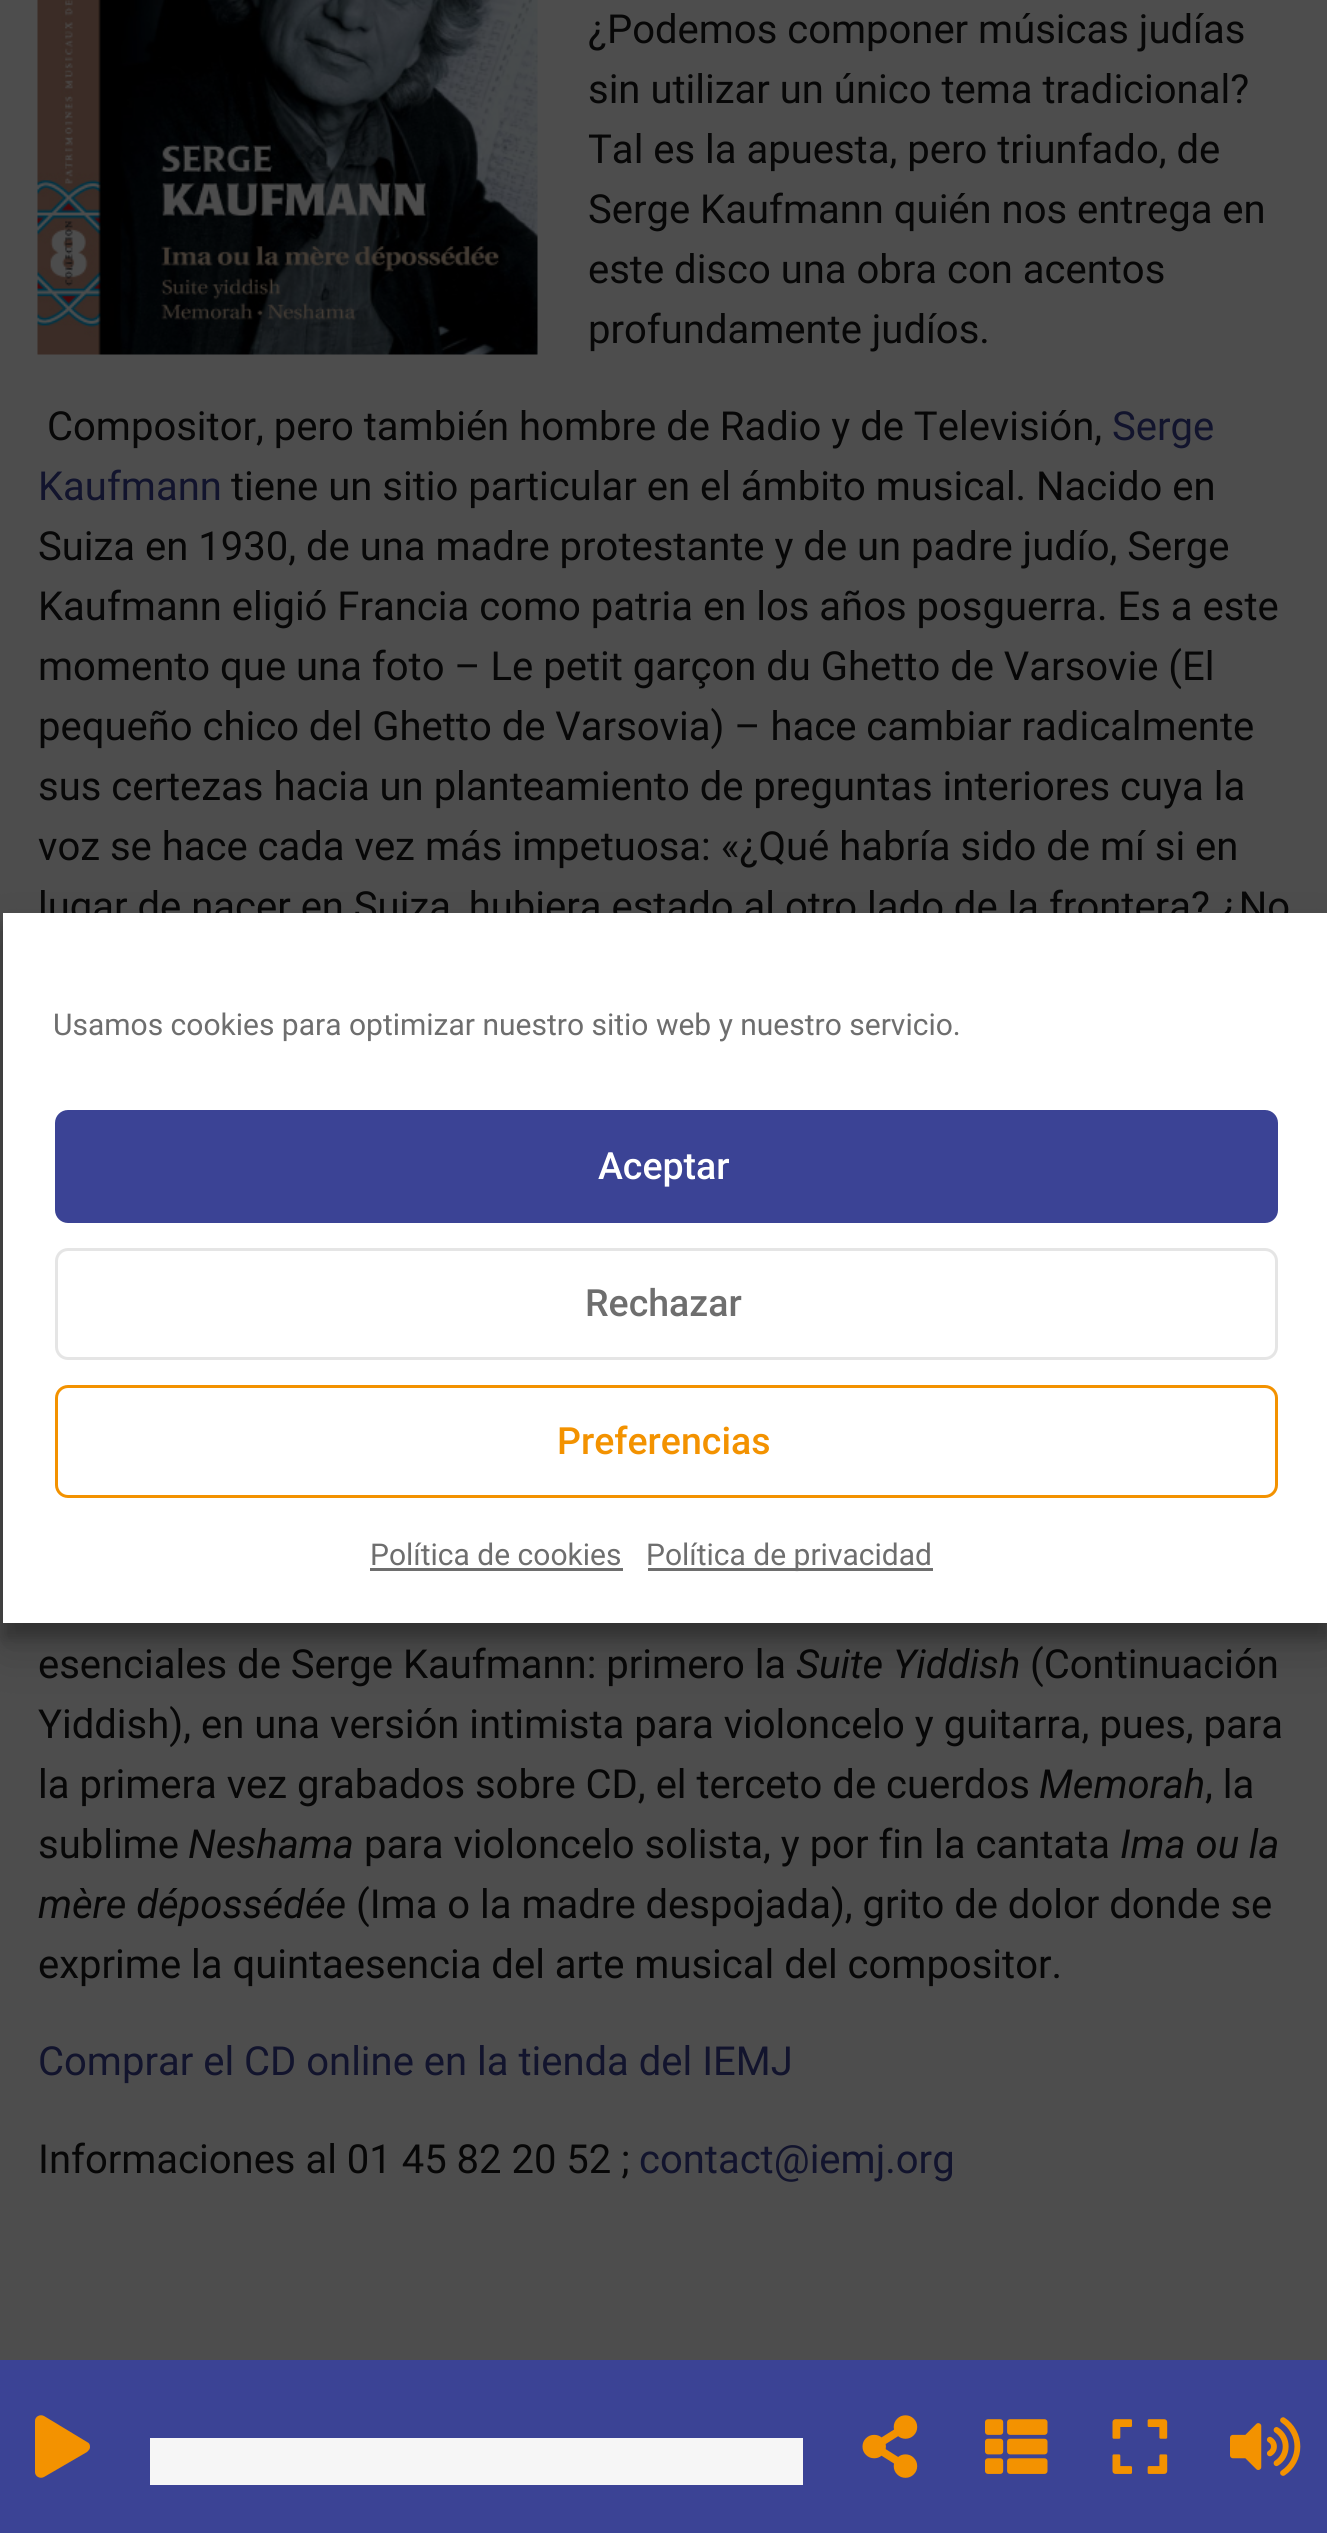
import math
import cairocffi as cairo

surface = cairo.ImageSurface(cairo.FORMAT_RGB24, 1327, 2533)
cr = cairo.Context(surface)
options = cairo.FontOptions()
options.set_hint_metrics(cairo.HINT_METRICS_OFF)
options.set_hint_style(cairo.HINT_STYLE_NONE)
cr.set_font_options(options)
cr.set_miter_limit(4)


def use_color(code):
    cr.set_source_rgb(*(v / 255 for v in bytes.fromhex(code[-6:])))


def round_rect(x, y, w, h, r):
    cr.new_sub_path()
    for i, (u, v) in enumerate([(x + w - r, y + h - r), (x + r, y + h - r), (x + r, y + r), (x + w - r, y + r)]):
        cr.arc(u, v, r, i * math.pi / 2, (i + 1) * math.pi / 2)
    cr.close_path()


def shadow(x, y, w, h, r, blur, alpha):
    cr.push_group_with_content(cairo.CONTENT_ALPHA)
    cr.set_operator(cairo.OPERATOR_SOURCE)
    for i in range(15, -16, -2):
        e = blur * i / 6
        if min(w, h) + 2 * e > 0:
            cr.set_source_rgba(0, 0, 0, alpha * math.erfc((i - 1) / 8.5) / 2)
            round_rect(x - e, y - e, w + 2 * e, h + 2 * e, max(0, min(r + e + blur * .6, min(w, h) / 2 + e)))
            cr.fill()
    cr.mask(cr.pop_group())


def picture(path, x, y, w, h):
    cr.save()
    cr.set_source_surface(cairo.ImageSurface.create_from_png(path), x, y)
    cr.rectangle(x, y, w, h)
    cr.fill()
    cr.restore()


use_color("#4d4d4d")
cr.paint()
picture("img1.png", 37, 0, 501, 355)
cr.select_font_face("Roboto")
cr.set_font_size(40)
use_color("#070707")
cr.move_to(588, 43)
cr.show_text("¿Podemos componer músicas judías")
cr.move_to(588, 103)
cr.show_text("sin utilizar un único tema tradicional?")
cr.move_to(588, 163)
cr.show_text("Tal es la apuesta, pero triunfado, de")
cr.move_to(588, 223)
cr.show_text("Serge Kaufmann quién nos entrega en")
cr.move_to(588, 283)
cr.show_text("este disco una obra con acentos")
cr.move_to(588, 343)
cr.show_text("profundamente judíos.")
cr.move_to(47, 440)
cr.show_text("Compositor, pero también hombre de Radio y de Televisión,")
use_color("#12142d")
cr.move_to(1112, 440)
cr.show_text("Serge")
cr.move_to(38, 500)
cr.show_text("Kaufmann")
use_color("#070707")
cr.move_to(231, 500)
cr.show_text("tiene un sitio particular en el ámbito musical. Nacido en")
cr.move_to(38, 560)
cr.show_text("Suiza en 1930, de una madre protestante y de un padre judío, Serge")
cr.move_to(38, 620)
cr.show_text("Kaufmann eligió Francia como patria en los años posguerra. Es a este")
cr.move_to(38, 680)
cr.show_text("momento que una foto – Le petit garçon du Ghetto de Varsovie (El")
cr.move_to(38, 740)
cr.show_text("pequeño chico del Ghetto de Varsovia) – hace cambiar radicalmente")
cr.move_to(38, 800)
cr.show_text("sus certezas hacia un planteamiento de preguntas interiores cuya la")
cr.move_to(38, 860)
cr.show_text("voz se hace cada vez más impetuosa: «¿Qué habría sido de mí si en")
cr.move_to(38, 920)
cr.show_text("lugar de nacer en Suiza, hubiera estado al otro lado de la frontera? ¿No")
cr.move_to(38, 1678)
cr.show_text("esenciales de Serge Kaufmann: primero la")
cr.select_font_face("Roboto", cairo.FONT_SLANT_ITALIC)
cr.move_to(796, 1678)
cr.show_text("Suite Yiddish")
cr.select_font_face("Roboto")
cr.move_to(1030, 1678)
cr.show_text("(Continuación")
cr.move_to(38, 1738)
cr.show_text("Yiddish), en una versión intimista para violoncelo y guitarra, pues, para")
cr.move_to(38, 1798)
cr.show_text("la primera vez grabados sobre CD, el terceto de cuerdos")
cr.select_font_face("Roboto", cairo.FONT_SLANT_ITALIC)
cr.move_to(1039, 1798)
cr.show_text("Memorah")
cr.select_font_face("Roboto")
cr.move_to(1205, 1798)
cr.show_text(", la")
cr.move_to(38, 1858)
cr.show_text("sublime")
cr.select_font_face("Roboto", cairo.FONT_SLANT_ITALIC)
cr.move_to(188, 1858)
cr.show_text("Neshama")
cr.select_font_face("Roboto")
cr.move_to(364, 1858)
cr.show_text("para violoncelo solista, y por fin la cantata")
cr.select_font_face("Roboto", cairo.FONT_SLANT_ITALIC)
cr.move_to(1120, 1858)
cr.show_text("Ima ou la")
cr.move_to(38, 1918)
cr.show_text("mère dépossédée")
cr.select_font_face("Roboto")
cr.move_to(356, 1918)
cr.show_text("(Ima o la madre despojada), grito de dolor donde se")
cr.move_to(38, 1978)
cr.show_text("exprime la quintaesencia del arte musical del compositor.")
use_color("#12142d")
cr.move_to(38, 2075)
cr.show_text("Comprar el CD online en la tienda del IEMJ")
use_color("#070707")
cr.move_to(38, 2173)
cr.show_text("Informaciones al 01 45 82 20 52 ;")
use_color("#12142d")
cr.move_to(639, 2173)
cr.show_text("contact@iemj.org")
use_color("#000000")
shadow(3, 928, 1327, 710, 0, 7.5, 0.23)
shadow(3, 938, 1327, 710, 0, 25, 0.19)
use_color("#ffffff")
cr.rectangle(3, 913, 1324, 710)
cr.fill()
cr.save()
cr.rectangle(55, 1003, 1223, 57)
cr.clip()
cr.set_font_size(30)
use_color("#6e6e6e")
cr.move_to(53, 1035)
cr.show_text("Usamos cookies para optimizar nuestro sitio web y nuestro servicio.")
cr.restore()
use_color("#3b4395")
round_rect(56.5, 1111.5, 1220, 110, 11.5)
cr.fill_preserve()
cr.set_line_width(3)
cr.stroke()
cr.select_font_face("Roboto Medium")
cr.set_font_size(37.5)
use_color("#ffffff")
cr.move_to(598, 1179)
cr.show_text("Aceptar")
round_rect(56.5, 1249.5, 1220, 109, 11.5)
use_color("#e5e5e5")
cr.stroke()
use_color("#6e6e6e")
cr.move_to(585, 1316)
cr.show_text("Rechazar")
round_rect(56.5, 1386.5, 1220, 110, 11.5)
use_color("#f39200")
cr.stroke()
cr.move_to(557, 1454)
cr.show_text("Preferencias")
cr.select_font_face("Roboto")
cr.set_font_size(30)
use_color("#6e6e6e")
cr.move_to(370, 1565)
cr.show_text("Política de cookies")
cr.rectangle(370, 1568, 253, 3)
cr.fill()
cr.rectangle(648, 1568, 285, 3)
cr.fill()
cr.move_to(646, 1565)
cr.show_text("Política de privacidad")
use_color("#3b4395")
cr.rectangle(0, 2360, 1327, 173)
cr.fill()
use_color("#f39200")
cr.new_path()
cr.move_to(87, 2442)
cr.curve_to(89, 2443, 90, 2444, 90, 2447)
cr.curve_to(90, 2449, 89, 2450, 87, 2452)
cr.line_to(44, 2477)
cr.curve_to(42, 2478, 40, 2478, 38, 2477)
cr.curve_to(36, 2476, 35, 2474, 35, 2472)
cr.line_to(35, 2421)
cr.curve_to(35, 2419, 36, 2417, 38, 2416)
cr.curve_to(40, 2415, 42, 2415, 44, 2416)
cr.close_path()
cr.fill()
use_color("#f6f6f6")
cr.rectangle(150, 2438, 653, 47)
cr.fill()
picture("img2.png", 862, 2415, 56, 63)
picture("img3.png", 985, 2419, 63, 55)
picture("img4.png", 1112, 2419, 56, 55)
picture("img5.png", 1230, 2417, 71, 59)
surface.write_to_png("result.png")
